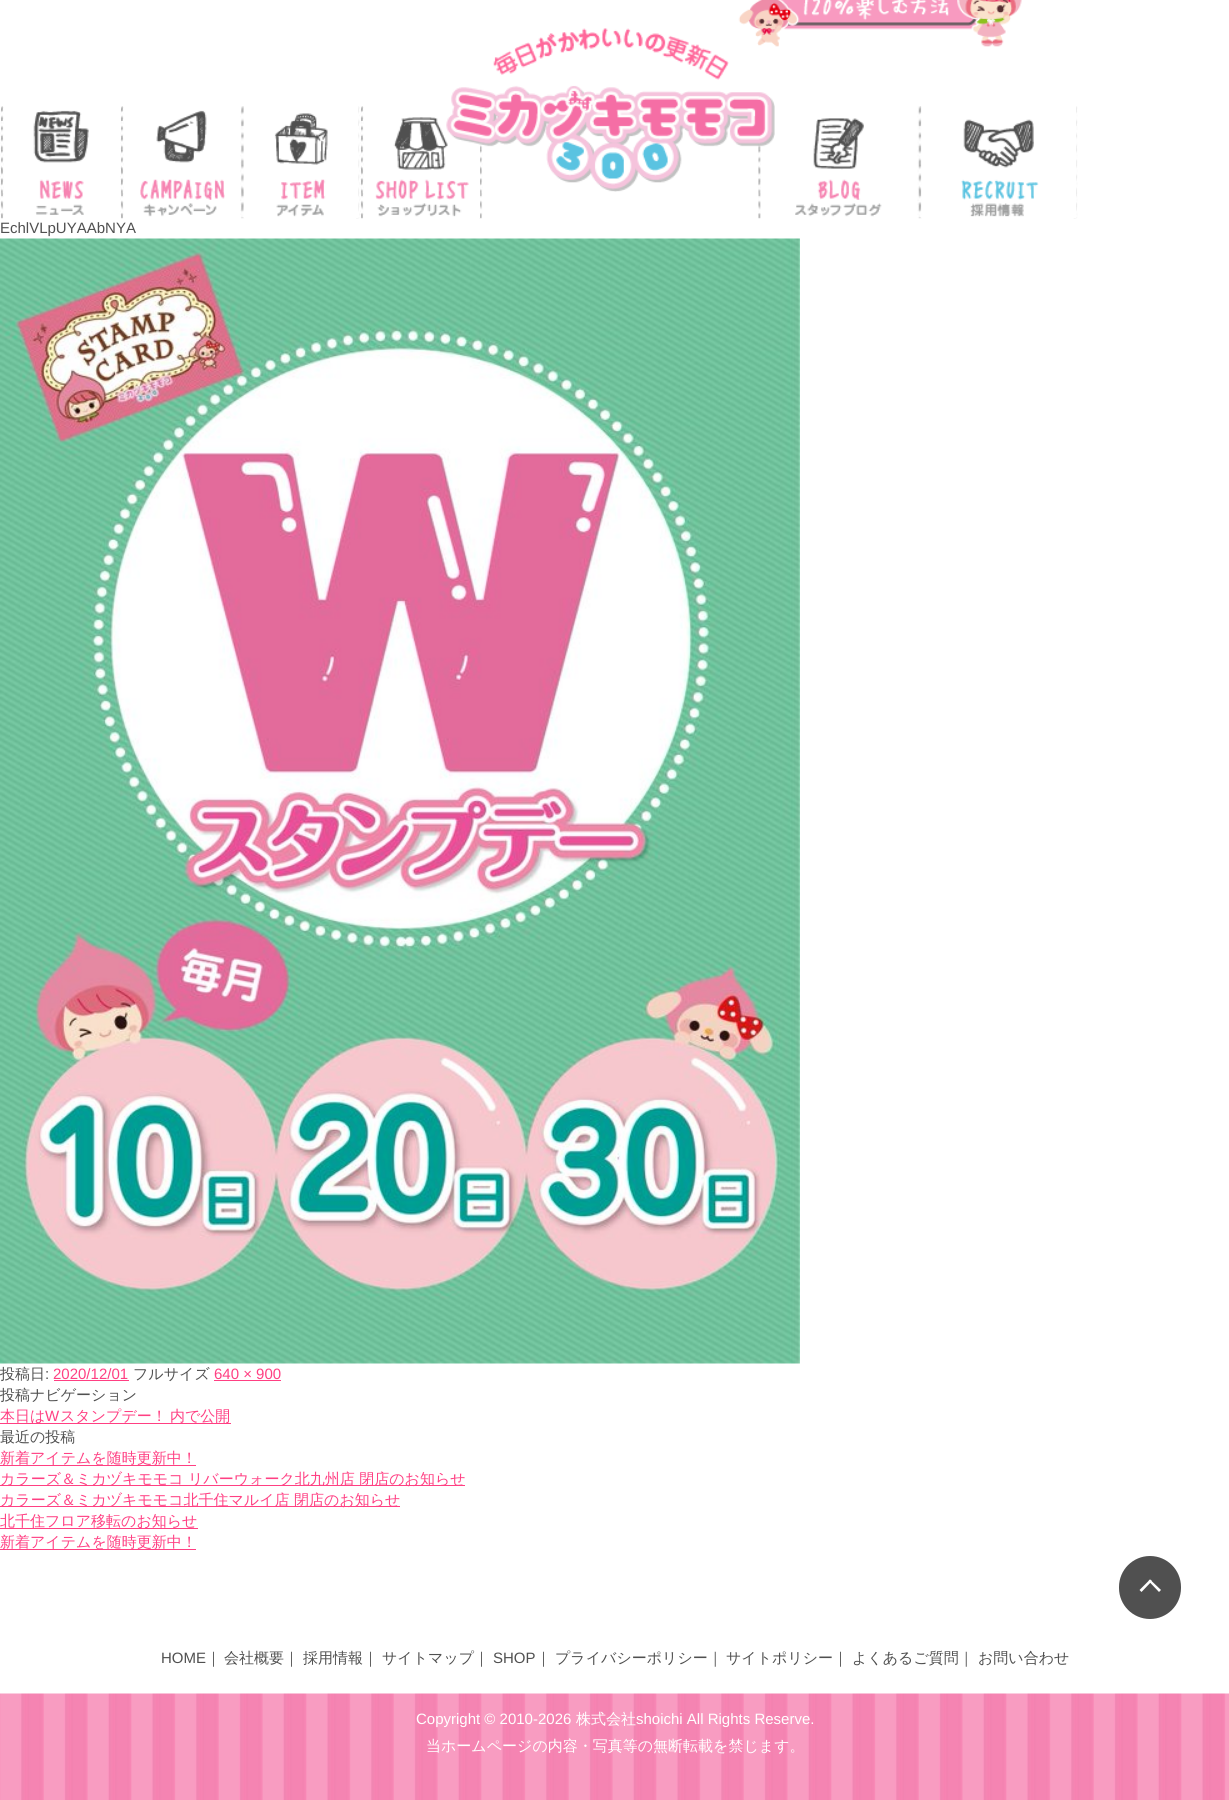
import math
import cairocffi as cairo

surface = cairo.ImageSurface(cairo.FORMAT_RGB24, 1229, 1800)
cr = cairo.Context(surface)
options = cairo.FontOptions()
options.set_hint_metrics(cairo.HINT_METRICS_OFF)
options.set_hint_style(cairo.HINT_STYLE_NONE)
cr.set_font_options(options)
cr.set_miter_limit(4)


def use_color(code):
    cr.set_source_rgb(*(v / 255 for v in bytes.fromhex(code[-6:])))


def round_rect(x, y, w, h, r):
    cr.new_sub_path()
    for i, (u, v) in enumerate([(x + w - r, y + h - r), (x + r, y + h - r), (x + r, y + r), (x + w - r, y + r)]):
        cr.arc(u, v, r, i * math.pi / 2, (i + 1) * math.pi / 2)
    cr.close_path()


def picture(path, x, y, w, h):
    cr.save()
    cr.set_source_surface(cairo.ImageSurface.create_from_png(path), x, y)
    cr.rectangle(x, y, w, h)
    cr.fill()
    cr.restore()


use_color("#ffffff")
cr.paint()
picture("img2.png", 738, 0, 284, 47)
picture("img8.png", 360, 106, 123, 113)
picture("img9.png", 375, 107, 105, 111)
picture("img10.png", 758, 142, 3, 77)
picture("img1.png", 446, 28, 329, 164)
picture("img3.png", 0, 106, 4, 113)
picture("img4.png", 33, 110, 56, 105)
picture("img3.png", 120, 106, 4, 113)
picture("img5.png", 140, 110, 85, 107)
picture("img6.png", 240, 106, 120, 113)
picture("img7.png", 243, 106, 116, 112)
picture("img11.png", 795, 118, 87, 99)
picture("img12.png", 917, 106, 161, 113)
picture("img13.png", 921, 106, 156, 112)
cr.select_font_face("Liberation Sans")
cr.set_font_size(15)
use_color("#505050")
cr.move_to(0, 233)
cr.show_text("EchlVLpUYAAbNYA")
picture("img14.png", 0, 238, 800, 1126)
cr.select_font_face("WenQuanYi Zen Hei Medium")
cr.move_to(0, 1379)
cr.show_text("投稿日")
cr.select_font_face("Liberation Sans")
cr.move_to(45, 1379)
cr.show_text(":")
use_color("#ff4083")
cr.move_to(53, 1379)
cr.show_text("2020/12/01")
cr.rectangle(54, 1380, 75, 1)
cr.fill()
cr.select_font_face("WenQuanYi Zen Hei Medium")
use_color("#505050")
cr.move_to(133, 1379)
cr.show_text("フルサイズ")
cr.select_font_face("Liberation Sans")
use_color("#ff4083")
cr.move_to(214, 1379)
cr.show_text("640 × 900")
cr.rectangle(214, 1380, 67, 1)
cr.fill()
cr.select_font_face("WenQuanYi Zen Hei Medium")
use_color("#505050")
cr.move_to(0, 1400)
cr.show_text("投稿ナビゲーション")
use_color("#ff4083")
cr.rectangle(0, 1423, 231, 1)
cr.fill()
cr.move_to(0, 1421)
cr.show_text("本日は")
cr.select_font_face("Liberation Sans")
cr.move_to(45, 1421)
cr.show_text("W")
cr.select_font_face("WenQuanYi Zen Hei Medium")
cr.move_to(60, 1421)
cr.show_text("スタンプデー！")
cr.move_to(170, 1421)
cr.show_text("内で公開")
use_color("#505050")
cr.move_to(0, 1442)
cr.show_text("最近の投稿")
use_color("#ff4083")
cr.rectangle(0, 1465, 196, 1)
cr.fill()
cr.move_to(0, 1463)
cr.show_text("新着アイテムを随時更新中！")
cr.rectangle(0, 1485, 465, 1)
cr.fill()
cr.move_to(0, 1484)
cr.show_text("カラーズ＆ミカヅキモモコ リバーウォーク北九州店 閉店のお知らせ")
cr.rectangle(0, 1506, 400, 1)
cr.fill()
cr.move_to(0, 1505)
cr.show_text("カラーズ＆ミカヅキモモコ北千住マルイ店 閉店のお知らせ")
cr.rectangle(0, 1528, 198, 1)
cr.fill()
cr.move_to(0, 1526)
cr.show_text("北千住フロア移転のお知らせ")
cr.rectangle(0, 1549, 196, 1)
cr.fill()
cr.move_to(0, 1547)
cr.show_text("新着アイテムを随時更新中！")
cr.select_font_face("Liberation Sans")
use_color("#505050")
cr.move_to(161, 1663)
cr.show_text("HOME")
cr.select_font_face("WenQuanYi Zen Hei Medium")
cr.move_to(206, 1663)
cr.show_text("｜")
cr.move_to(224, 1663)
cr.show_text("会社概要｜")
cr.move_to(303, 1663)
cr.show_text("採用情報｜")
cr.move_to(382, 1663)
cr.show_text("サイトマップ｜")
cr.select_font_face("Liberation Sans")
cr.move_to(493, 1663)
cr.show_text("SHOP")
cr.select_font_face("WenQuanYi Zen Hei Medium")
cr.move_to(536, 1663)
cr.show_text("｜")
cr.move_to(555, 1663)
cr.show_text("プライバシーポリシー｜")
cr.move_to(726, 1663)
cr.show_text("サイトポリシー｜")
cr.move_to(852, 1663)
cr.show_text("よくあるご質問｜")
cr.move_to(978, 1663)
cr.show_text("お問い合わせ")
picture("img15.png", 0, 1693, 1229, 107)
round_rect(1119, 1556, 62, 63, 31)
cr.fill()
use_color("#ffffff")
cr.new_path()
cr.move_to(1139.5, 1590)
cr.line_to(1150, 1579.5)
cr.line_to(1152, 1581)
cr.line_to(1141.5, 1592)
cr.close_path()
cr.fill()
cr.new_path()
cr.move_to(1148.5, 1581)
cr.line_to(1150, 1579.5)
cr.line_to(1161, 1590)
cr.line_to(1159, 1592)
cr.close_path()
cr.fill()
cr.select_font_face("Liberation Sans")
cr.move_to(416, 1724)
cr.show_text("Copyright © 2010-2026")
cr.select_font_face("WenQuanYi Zen Hei Medium")
cr.move_to(576, 1724)
cr.show_text("株式会社")
cr.select_font_face("Liberation Sans")
cr.move_to(636, 1724)
cr.show_text("shoichi All Rights Reserve.")
cr.select_font_face("WenQuanYi Zen Hei Medium")
cr.move_to(426, 1751)
cr.show_text("当ホームページの内容・写真等の無断転載を禁じます。")
surface.write_to_png("result.png")
